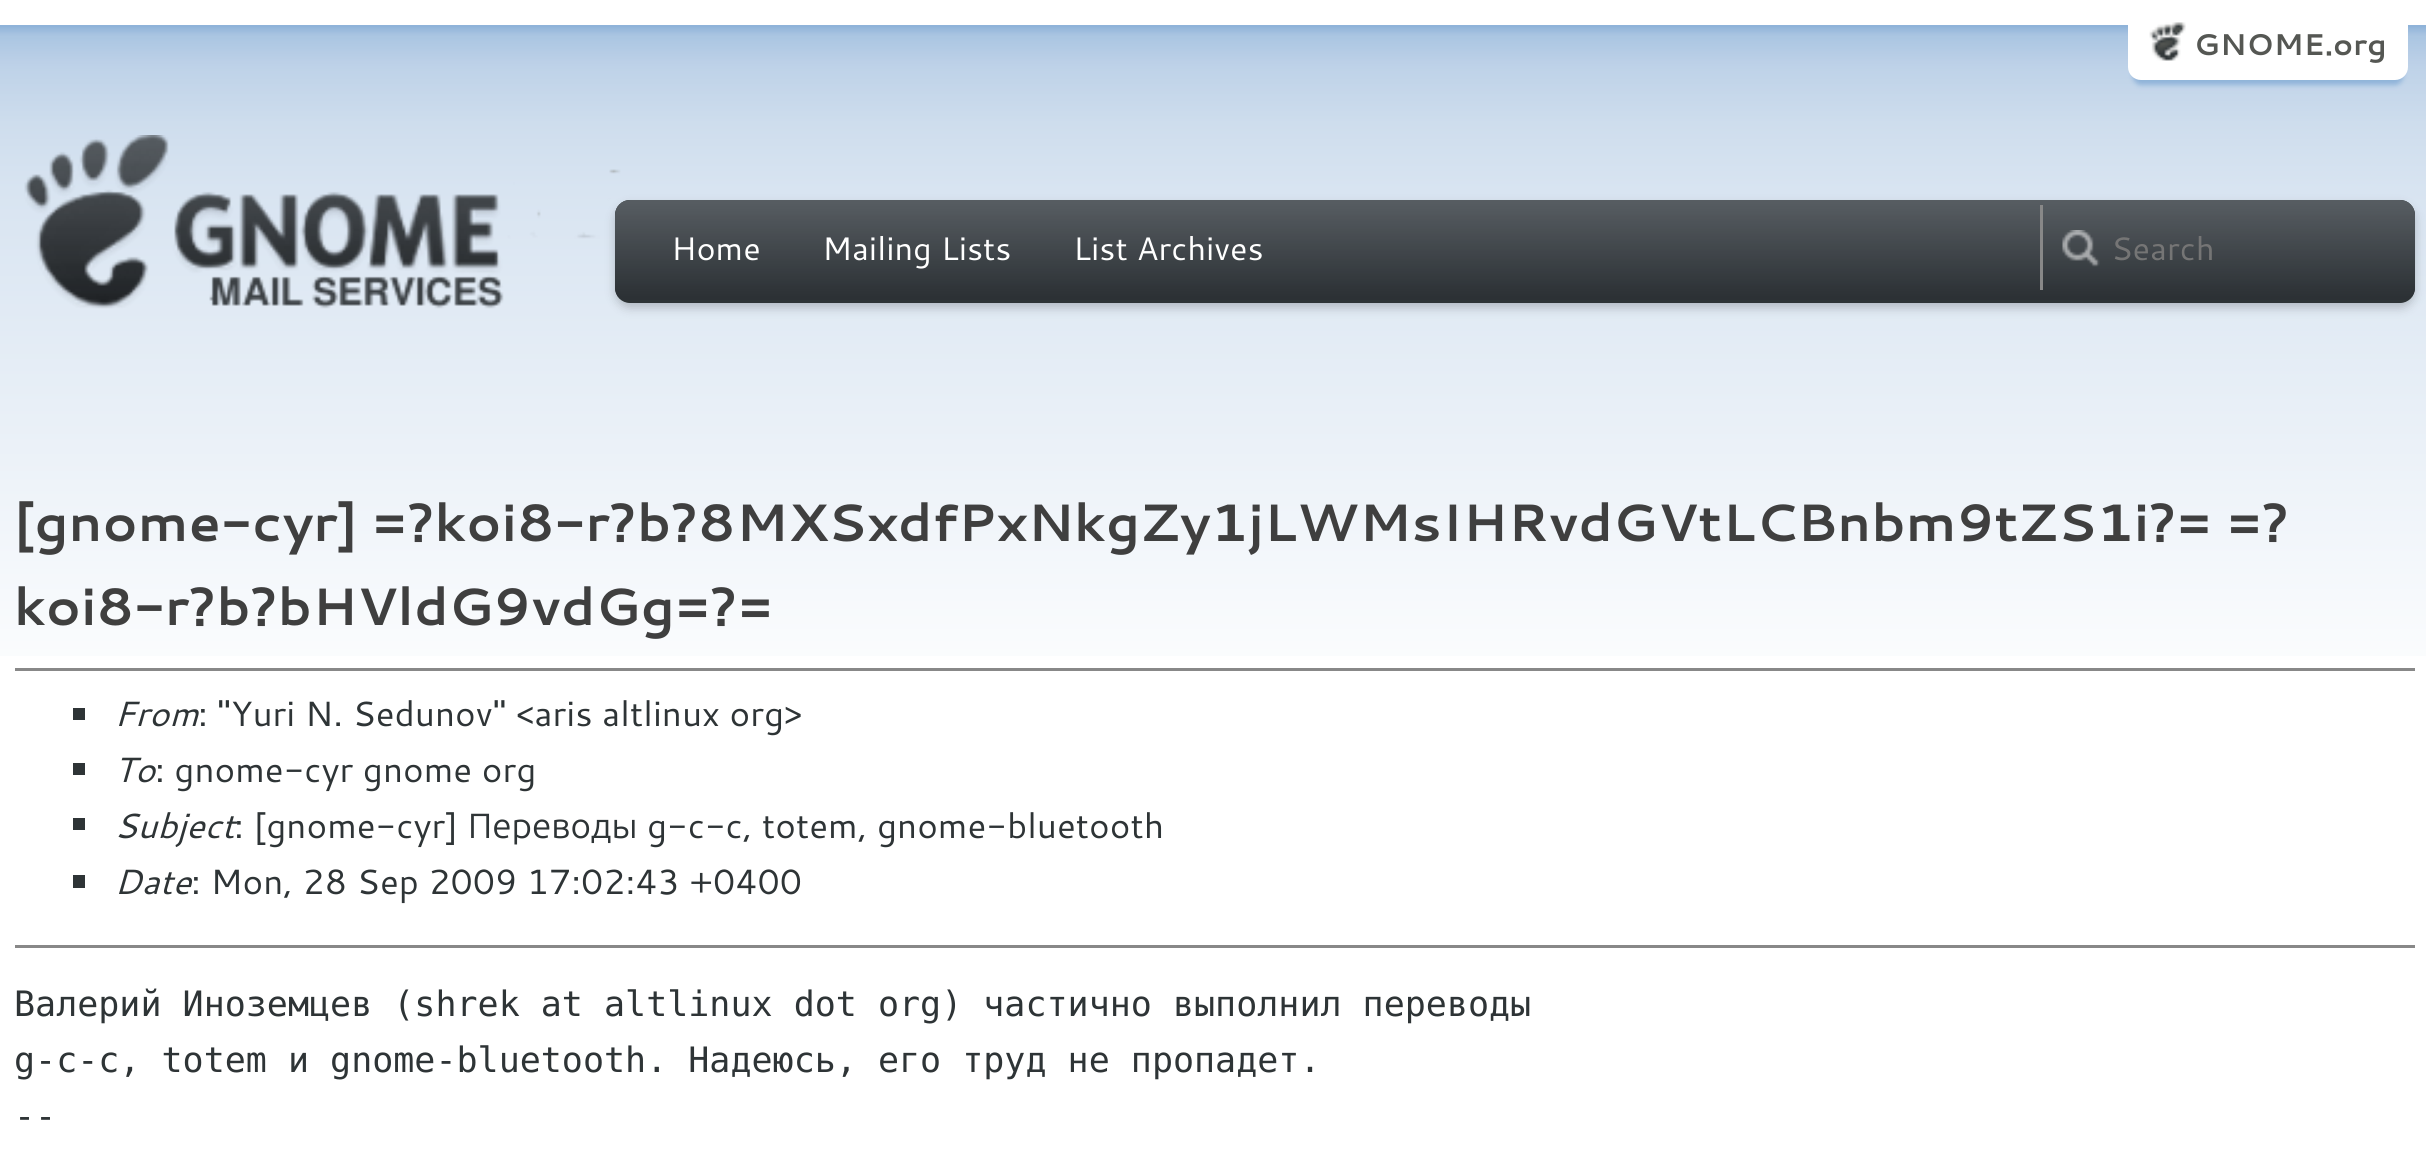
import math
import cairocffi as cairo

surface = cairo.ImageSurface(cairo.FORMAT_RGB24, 2426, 1152)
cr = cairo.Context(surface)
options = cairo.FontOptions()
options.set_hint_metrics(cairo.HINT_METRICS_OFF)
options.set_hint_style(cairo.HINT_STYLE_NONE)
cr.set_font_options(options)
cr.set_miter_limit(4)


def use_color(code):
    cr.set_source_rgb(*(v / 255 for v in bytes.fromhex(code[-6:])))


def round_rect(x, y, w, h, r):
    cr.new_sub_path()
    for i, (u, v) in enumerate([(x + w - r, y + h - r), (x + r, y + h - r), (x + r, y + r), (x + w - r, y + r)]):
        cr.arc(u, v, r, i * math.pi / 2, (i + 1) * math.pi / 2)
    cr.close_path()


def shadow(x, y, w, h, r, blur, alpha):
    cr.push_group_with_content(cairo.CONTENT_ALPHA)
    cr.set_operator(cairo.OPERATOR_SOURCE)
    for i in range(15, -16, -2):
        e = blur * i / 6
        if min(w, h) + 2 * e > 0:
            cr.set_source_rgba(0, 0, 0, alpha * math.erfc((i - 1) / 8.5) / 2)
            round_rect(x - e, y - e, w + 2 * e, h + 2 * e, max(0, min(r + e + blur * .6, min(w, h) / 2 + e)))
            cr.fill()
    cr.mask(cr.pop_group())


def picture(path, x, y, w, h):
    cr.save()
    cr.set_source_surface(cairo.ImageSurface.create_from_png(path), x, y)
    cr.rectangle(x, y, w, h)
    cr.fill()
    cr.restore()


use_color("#ffffff")
cr.paint()
picture("img1.png", 0, 25, 2426, 631)
use_color("#8fb3d9")
shadow(2133, 25, 270, 60, 8, 2.5, 1)
use_color("#ffffff")
round_rect(2128, 10, 280, 70, 13)
cr.fill()
picture("img2.png", 2149, 22, 37, 39)
cr.select_font_face("Cantarell", cairo.FONT_SLANT_NORMAL, cairo.FONT_WEIGHT_BOLD)
cr.set_font_size(30)
use_color("#555753")
cr.move_to(2194, 55)
cr.show_text("GNOME.org")
picture("img3.png", 24, 135, 597, 174)
use_color("#000000")
shadow(615, 205, 1800, 103, 15, 5, 0.2)
use_color("#2e3436")
round_rect(615, 200, 1800, 103, 15)
cr.fill()
picture("img4.png", 615, 200, 1800, 100)
cr.select_font_face("Cantarell")
cr.set_font_size(32.5)
use_color("#ffffff")
cr.move_to(671, 260)
cr.show_text("Home")
cr.move_to(822, 260)
cr.show_text("Mailing Lists")
cr.move_to(1073, 260)
cr.show_text("List Archives")
picture("img5.png", 2062, 230, 38, 37)
use_color("#888888")
cr.rectangle(2040, 205, 3, 85)
cr.fill()
use_color("#757575")
cr.move_to(2111, 260)
cr.show_text("Search")
cr.select_font_face("Cantarell", cairo.FONT_SLANT_NORMAL, cairo.FONT_WEIGHT_BOLD)
cr.set_font_size(52.5)
use_color("#3f3f3f")
cr.move_to(14, 541)
cr.show_text("[gnome-cyr] =?koi8-r?b?8MXSxdfPxNkgZy1jLWMsIHRvdGVtLCBnbm9tZS1i?= =?")
cr.move_to(14, 625)
cr.show_text("koi8-r?b?bHVldG9vdGg=?=")
use_color("#888888")
cr.rectangle(15, 668, 2400, 3)
cr.fill()
use_color("#2e3436")
cr.rectangle(73, 708, 12, 12)
cr.fill()
cr.select_font_face("Cantarell", cairo.FONT_SLANT_ITALIC)
cr.set_font_size(35)
cr.move_to(114, 726)
cr.show_text("From")
cr.select_font_face("Cantarell")
cr.move_to(198, 726)
cr.show_text(": \"Yuri N. Sedunov\" <aris altlinux org>")
cr.rectangle(73, 763, 12, 12)
cr.fill()
cr.select_font_face("Cantarell", cairo.FONT_SLANT_ITALIC)
cr.move_to(114, 782)
cr.show_text("To")
cr.select_font_face("Cantarell")
cr.move_to(155, 782)
cr.show_text(": gnome-cyr gnome org")
cr.rectangle(73, 818, 12, 12)
cr.fill()
cr.select_font_face("Cantarell", cairo.FONT_SLANT_ITALIC)
cr.move_to(114, 838)
cr.show_text("Subject")
cr.select_font_face("Cantarell")
cr.move_to(234, 838)
cr.show_text(": [gnome-cyr]")
cr.select_font_face("Ubuntu")
cr.move_to(468, 838)
cr.show_text("Переводы")
cr.select_font_face("Cantarell")
cr.move_to(647, 838)
cr.show_text("g-c-c, totem, gnome-bluetooth")
cr.rectangle(73, 875, 12, 13)
cr.fill()
cr.select_font_face("Cantarell", cairo.FONT_SLANT_ITALIC)
cr.move_to(114, 894)
cr.show_text("Date")
cr.select_font_face("Cantarell")
cr.move_to(191, 894)
cr.show_text(": Mon, 28 Sep 2009 17:02:43 +0400")
use_color("#888888")
cr.rectangle(15, 945, 2400, 3)
cr.fill()
cr.select_font_face("DejaVu Sans Mono")
use_color("#2e3436")
cr.move_to(14, 1016)
cr.show_text("Валерий Иноземцев (shrek at altlinux dot org) частично выполнил переводы")
cr.move_to(14, 1072)
cr.show_text("g-c-c, totem и gnome-bluetooth. Надеюсь, его труд не пропадет.")
cr.move_to(14, 1128)
cr.show_text("--")
surface.write_to_png("result.png")
